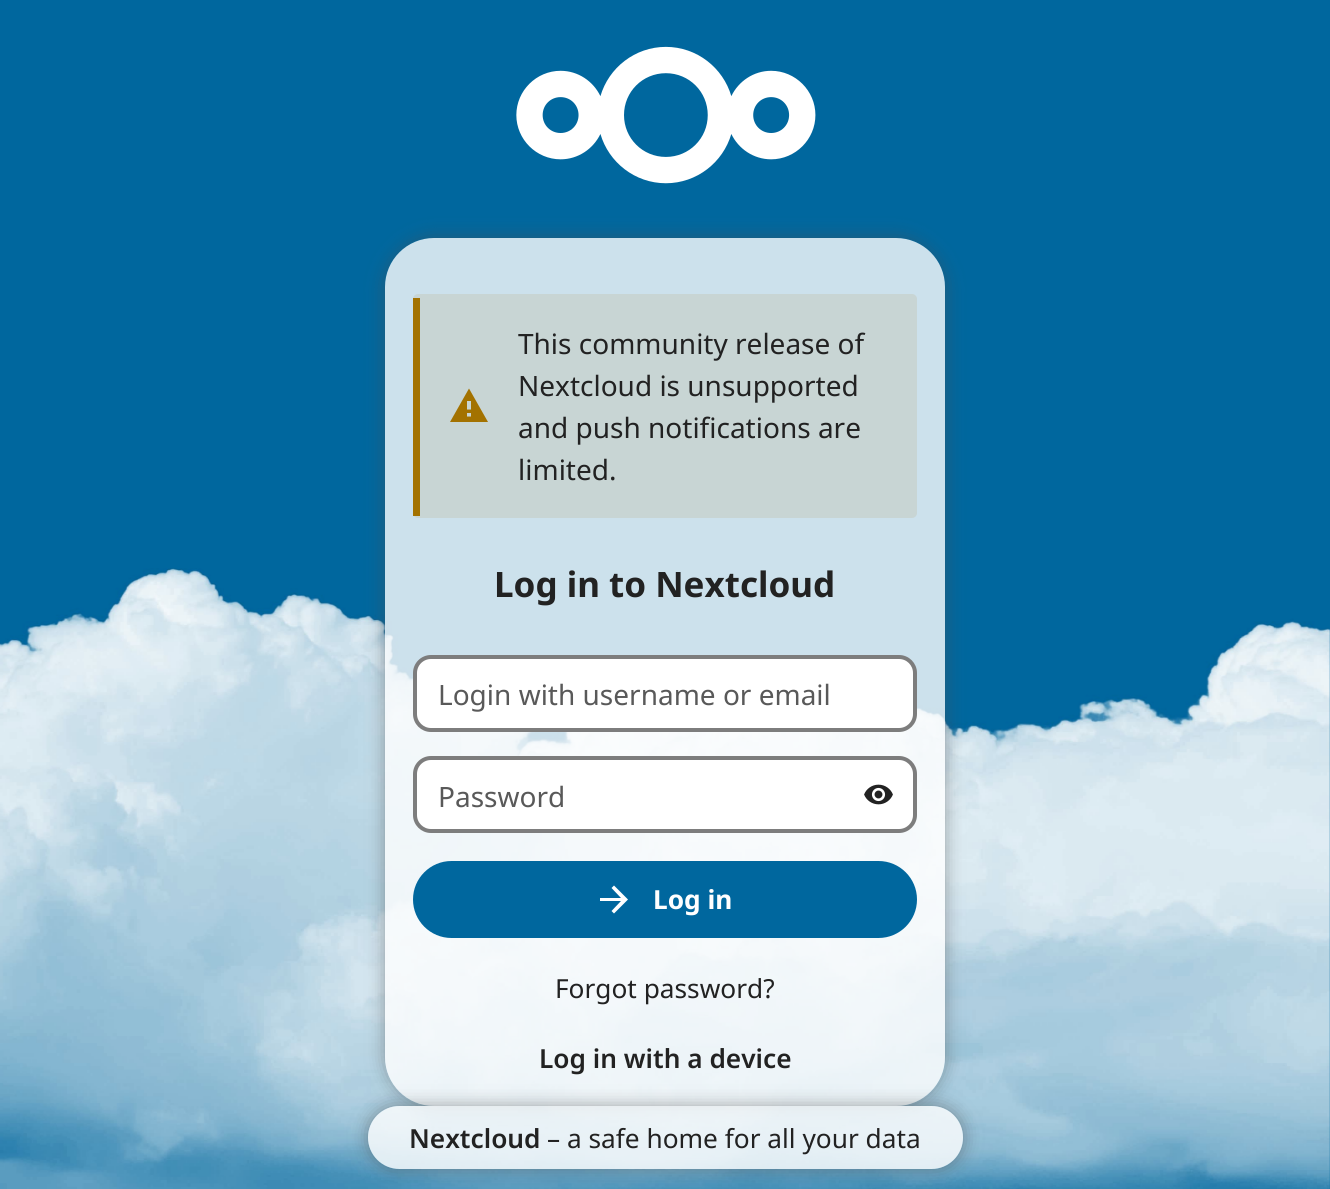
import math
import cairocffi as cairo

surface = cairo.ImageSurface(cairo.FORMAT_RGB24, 1330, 1189)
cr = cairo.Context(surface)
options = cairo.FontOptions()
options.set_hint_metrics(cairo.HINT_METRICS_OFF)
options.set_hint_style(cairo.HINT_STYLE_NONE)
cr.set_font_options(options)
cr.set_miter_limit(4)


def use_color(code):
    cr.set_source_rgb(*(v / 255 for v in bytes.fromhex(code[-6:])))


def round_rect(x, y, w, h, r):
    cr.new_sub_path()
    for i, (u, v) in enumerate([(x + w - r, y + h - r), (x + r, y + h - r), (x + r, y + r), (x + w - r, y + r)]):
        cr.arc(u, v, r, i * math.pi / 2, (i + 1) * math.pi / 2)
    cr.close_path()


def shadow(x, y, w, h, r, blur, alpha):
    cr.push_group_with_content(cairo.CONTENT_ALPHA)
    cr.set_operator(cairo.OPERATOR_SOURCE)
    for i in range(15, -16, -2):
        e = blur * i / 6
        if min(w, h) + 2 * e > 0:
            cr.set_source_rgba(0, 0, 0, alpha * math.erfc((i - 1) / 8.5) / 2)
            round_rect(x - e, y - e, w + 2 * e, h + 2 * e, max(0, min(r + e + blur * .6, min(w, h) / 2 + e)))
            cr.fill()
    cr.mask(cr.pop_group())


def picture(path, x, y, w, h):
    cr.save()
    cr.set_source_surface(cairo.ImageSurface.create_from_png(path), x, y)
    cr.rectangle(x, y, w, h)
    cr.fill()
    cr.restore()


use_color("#00679e")
cr.paint()
picture("img1.png", 0, 568, 1330, 621)
picture("img2.png", 516, 46, 300, 138)
cr.save()
cr.set_fill_rule(cairo.FILL_RULE_EVEN_ODD)
cr.new_path()
cr.move_to(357, 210)
cr.line_to(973, 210)
cr.line_to(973, 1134)
cr.line_to(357, 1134)
cr.close_path()
cr.move_to(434, 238)
cr.line_to(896, 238)
cr.curve_to(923, 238, 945, 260, 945, 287)
cr.line_to(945, 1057)
cr.curve_to(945, 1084, 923, 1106, 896, 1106)
cr.line_to(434, 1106)
cr.curve_to(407, 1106, 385, 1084, 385, 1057)
cr.line_to(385, 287)
cr.curve_to(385, 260, 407, 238, 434, 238)
cr.close_path()
cr.clip()
use_color("#4d4d4d")
shadow(385, 238, 560, 868, 49, 9, 0.5)
cr.restore()
cr.set_source_rgba(1, 1, 1, 0.8)
round_rect(385, 238, 560, 868, 49)
cr.fill()
use_color("#c8d5d4")
round_rect(413, 294, 504, 224, 5)
cr.fill()
use_color("#a37200")
cr.rectangle(413, 298, 7, 218)
cr.fill()
cr.new_path()
cr.move_to(471, 409.5)
cr.line_to(467, 409.5)
cr.line_to(467, 401)
cr.line_to(471, 401)
cr.move_to(471, 416.5)
cr.line_to(467, 416.5)
cr.line_to(467, 413)
cr.line_to(471, 413)
cr.move_to(450, 422)
cr.line_to(488, 422)
cr.line_to(469, 388.5)
cr.close_path()
cr.fill()
cr.select_font_face("Noto Sans")
cr.set_font_size(28)
use_color("#222222")
cr.move_to(518, 354)
cr.show_text("This community release of")
cr.move_to(518, 396)
cr.show_text("Nextcloud is unsupported")
cr.move_to(518, 438)
cr.show_text("and push notifications are")
cr.move_to(518, 480)
cr.show_text("limited.")
cr.select_font_face("Noto Sans", cairo.FONT_SLANT_NORMAL, cairo.FONT_WEIGHT_BOLD)
cr.set_font_size(35)
cr.move_to(494, 597)
cr.show_text("Log in to Nextcloud")
use_color("#ffffff")
round_rect(415, 657, 500, 73, 16)
cr.fill_preserve()
use_color("#7d7d7d")
cr.set_line_width(4)
cr.stroke()
cr.select_font_face("Noto Sans")
cr.set_font_size(28)
use_color("#595959")
cr.move_to(438, 705)
cr.show_text("Login with username or email")
use_color("#ffffff")
round_rect(415, 758, 500, 73, 16)
cr.fill_preserve()
use_color("#7d7d7d")
cr.stroke()
use_color("#595959")
cr.move_to(438, 807)
cr.show_text("Password")
picture("img3.png", 864, 784, 29, 21)
use_color("#00679e")
round_rect(413, 861, 504, 77, 38.5)
cr.fill()
use_color("#ffffff")
cr.new_path()
cr.move_to(600, 898)
cr.line_to(600, 901)
cr.line_to(621, 901)
cr.line_to(611.5, 911)
cr.line_to(614, 913.5)
cr.line_to(628, 899.5)
cr.line_to(614, 885.5)
cr.line_to(611.5, 888)
cr.line_to(621, 898)
cr.close_path()
cr.fill()
cr.select_font_face("Noto Sans", cairo.FONT_SLANT_NORMAL, cairo.FONT_WEIGHT_BOLD)
cr.set_font_size(26.25)
cr.move_to(653, 909)
cr.show_text("Log in")
cr.select_font_face("Noto Sans")
use_color("#222222")
cr.move_to(555, 998)
cr.show_text("Forgot password?")
cr.select_font_face("Noto Sans SemiBold")
cr.move_to(539, 1068)
cr.show_text("Log in with a device")
cr.save()
cr.set_fill_rule(cairo.FILL_RULE_EVEN_ODD)
cr.new_path()
cr.move_to(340, 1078)
cr.line_to(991, 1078)
cr.line_to(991, 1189)
cr.line_to(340, 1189)
cr.close_path()
cr.move_to(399.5, 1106)
cr.line_to(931.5, 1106)
cr.curve_to(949, 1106, 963, 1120, 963, 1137.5)
cr.curve_to(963, 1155, 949, 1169, 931.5, 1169)
cr.line_to(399.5, 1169)
cr.curve_to(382, 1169, 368, 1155, 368, 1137.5)
cr.curve_to(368, 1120, 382, 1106, 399.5, 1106)
cr.close_path()
cr.clip()
use_color("#4d4d4d")
shadow(368, 1106, 595, 63, 31.5, 9, 0.5)
cr.restore()
cr.set_source_rgba(1, 1, 1, 0.8)
round_rect(368, 1106, 595, 63, 31.5)
cr.fill()
use_color("#222222")
cr.move_to(409, 1148)
cr.show_text("Nextcloud")
cr.select_font_face("Noto Sans")
cr.move_to(547, 1148)
cr.show_text("– a safe home for all your data")
surface.write_to_png("result.png")
